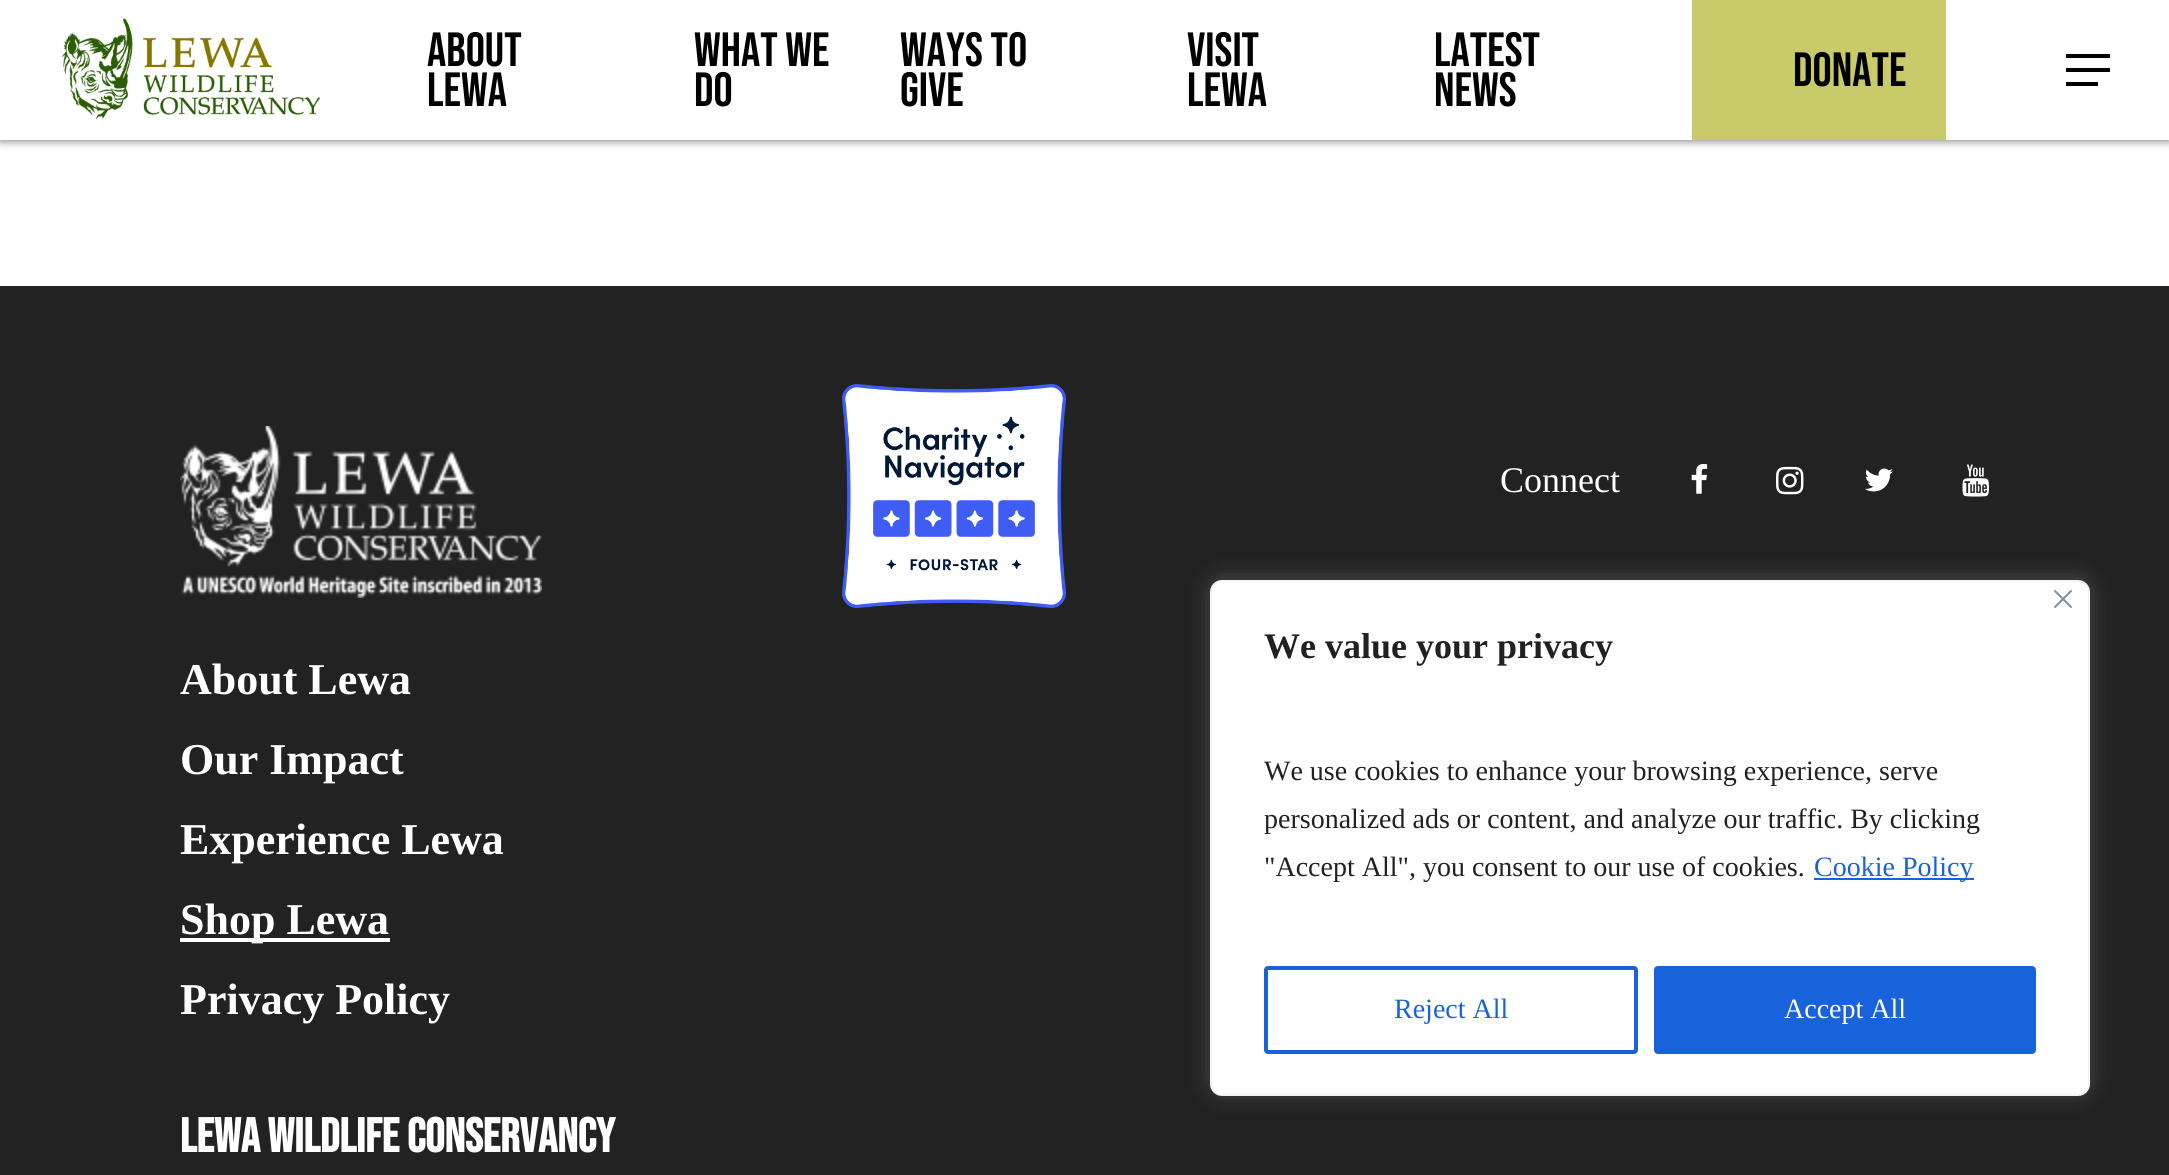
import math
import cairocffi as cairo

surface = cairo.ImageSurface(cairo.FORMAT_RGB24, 2169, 1175)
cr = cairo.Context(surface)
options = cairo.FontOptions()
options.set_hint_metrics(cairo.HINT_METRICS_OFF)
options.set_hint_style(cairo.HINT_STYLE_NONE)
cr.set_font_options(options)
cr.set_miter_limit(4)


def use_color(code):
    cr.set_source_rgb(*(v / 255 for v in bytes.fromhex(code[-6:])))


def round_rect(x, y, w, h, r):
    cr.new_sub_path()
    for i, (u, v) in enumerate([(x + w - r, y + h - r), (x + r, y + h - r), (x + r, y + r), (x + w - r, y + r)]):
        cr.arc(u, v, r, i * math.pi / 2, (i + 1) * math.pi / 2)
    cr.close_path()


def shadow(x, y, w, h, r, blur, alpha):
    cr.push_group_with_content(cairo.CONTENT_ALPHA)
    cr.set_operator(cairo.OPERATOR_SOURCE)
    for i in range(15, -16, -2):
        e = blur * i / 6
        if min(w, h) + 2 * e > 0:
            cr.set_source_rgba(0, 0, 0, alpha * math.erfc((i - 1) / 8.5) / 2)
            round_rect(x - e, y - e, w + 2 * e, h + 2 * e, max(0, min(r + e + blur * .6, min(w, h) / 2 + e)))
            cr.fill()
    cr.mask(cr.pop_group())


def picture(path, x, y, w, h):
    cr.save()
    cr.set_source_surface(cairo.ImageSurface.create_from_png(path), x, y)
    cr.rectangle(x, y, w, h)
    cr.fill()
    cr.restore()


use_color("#ffffff")
cr.paint()
cr.save()
cr.rectangle(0, 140, 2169, 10)
cr.clip()
use_color("#323232")
shadow(0, 0, 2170, 140, 0, 5, 0.75)
cr.restore()
picture("img1.png", 61, 18, 260, 101)
cr.select_font_face("Bebas Neue")
cr.set_font_size(48)
use_color("#000000")
cr.move_to(427, 66)
cr.show_text("About")
cr.move_to(427, 106)
cr.show_text("Lewa")
cr.move_to(694, 66)
cr.show_text("What We")
cr.move_to(694, 106)
cr.show_text("Do")
cr.move_to(900, 66)
cr.show_text("Ways to")
cr.move_to(900, 106)
cr.show_text("Give")
cr.move_to(1187, 66)
cr.show_text("Visit")
cr.move_to(1187, 106)
cr.show_text("Lewa")
cr.move_to(1434, 66)
cr.show_text("Latest")
cr.move_to(1434, 106)
cr.show_text("News")
use_color("#c9ca6a")
cr.rectangle(1692, 0, 254, 140)
cr.fill()
use_color("#000000")
cr.move_to(1793, 86)
cr.show_text("Donate")
cr.rectangle(2066, 54, 44, 4)
cr.fill()
cr.rectangle(2066, 82, 32, 4)
cr.fill()
cr.rectangle(2066, 68, 44, 4)
cr.fill()
use_color("#222222")
cr.rectangle(0, 286, 2169, 889)
cr.fill()
cr.select_font_face("Liberation Serif")
cr.set_font_size(36)
use_color("#ffffff")
cr.move_to(1500, 492)
cr.show_text("Connect")
picture("img2.png", 1691, 464, 17, 30)
picture("img3.png", 1776, 466, 28, 29)
picture("img4.png", 1865, 468, 28, 24)
picture("img5.png", 1962, 464, 27, 33)
picture("img6.png", 180, 426, 362, 172)
picture("img7.png", 842, 384, 224, 224)
cr.select_font_face("Liberation Serif", cairo.FONT_SLANT_NORMAL, cairo.FONT_WEIGHT_BOLD)
cr.set_font_size(44)
cr.move_to(180, 694)
cr.show_text("About Lewa")
cr.move_to(180, 774)
cr.show_text("Our Impact")
cr.move_to(180, 854)
cr.show_text("Experience Lewa")
cr.rectangle(180, 938, 210, 4)
cr.fill()
cr.move_to(180, 934)
cr.show_text("Shop Lewa")
cr.move_to(180, 1014)
cr.show_text("Privacy Policy")
cr.select_font_face("Bebas Neue", cairo.FONT_SLANT_NORMAL, cairo.FONT_WEIGHT_BOLD)
cr.set_font_size(48)
cr.move_to(180, 1152)
cr.show_text("Lewa Wildlife Conservancy")
use_color("#acabab")
shadow(1210, 578, 880, 516, 12, 10, 0.3)
use_color("#ffffff")
round_rect(1211, 581, 878, 514, 11)
cr.fill_preserve()
use_color("#f4f4f4")
cr.stroke()
picture("img8.png", 2054, 590, 18, 18)
cr.select_font_face("Liberation Serif", cairo.FONT_SLANT_NORMAL, cairo.FONT_WEIGHT_BOLD)
cr.set_font_size(36)
use_color("#212121")
cr.move_to(1264, 658)
cr.show_text("We value your privacy")
cr.select_font_face("Liberation Serif")
cr.set_font_size(28)
cr.move_to(1264, 780)
cr.show_text("We use cookies to enhance your browsing experience, serve")
cr.move_to(1264, 828)
cr.show_text("personalized ads or content, and analyze our traffic. By clicking")
cr.move_to(1264, 876)
cr.show_text("\"Accept All\", you consent to our use of cookies.")
use_color("#1863dc")
cr.rectangle(1814, 878, 160, 2)
cr.fill()
cr.move_to(1814, 876)
cr.show_text("Cookie Policy")
round_rect(1266, 968, 370, 84, 2)
cr.set_line_width(4)
cr.stroke()
cr.move_to(1394, 1018)
cr.show_text("Reject All")
round_rect(1656, 968, 378, 84, 2)
cr.fill_preserve()
cr.stroke()
use_color("#ffffff")
cr.move_to(1784, 1018)
cr.show_text("Accept All")
surface.write_to_png("result.png")
